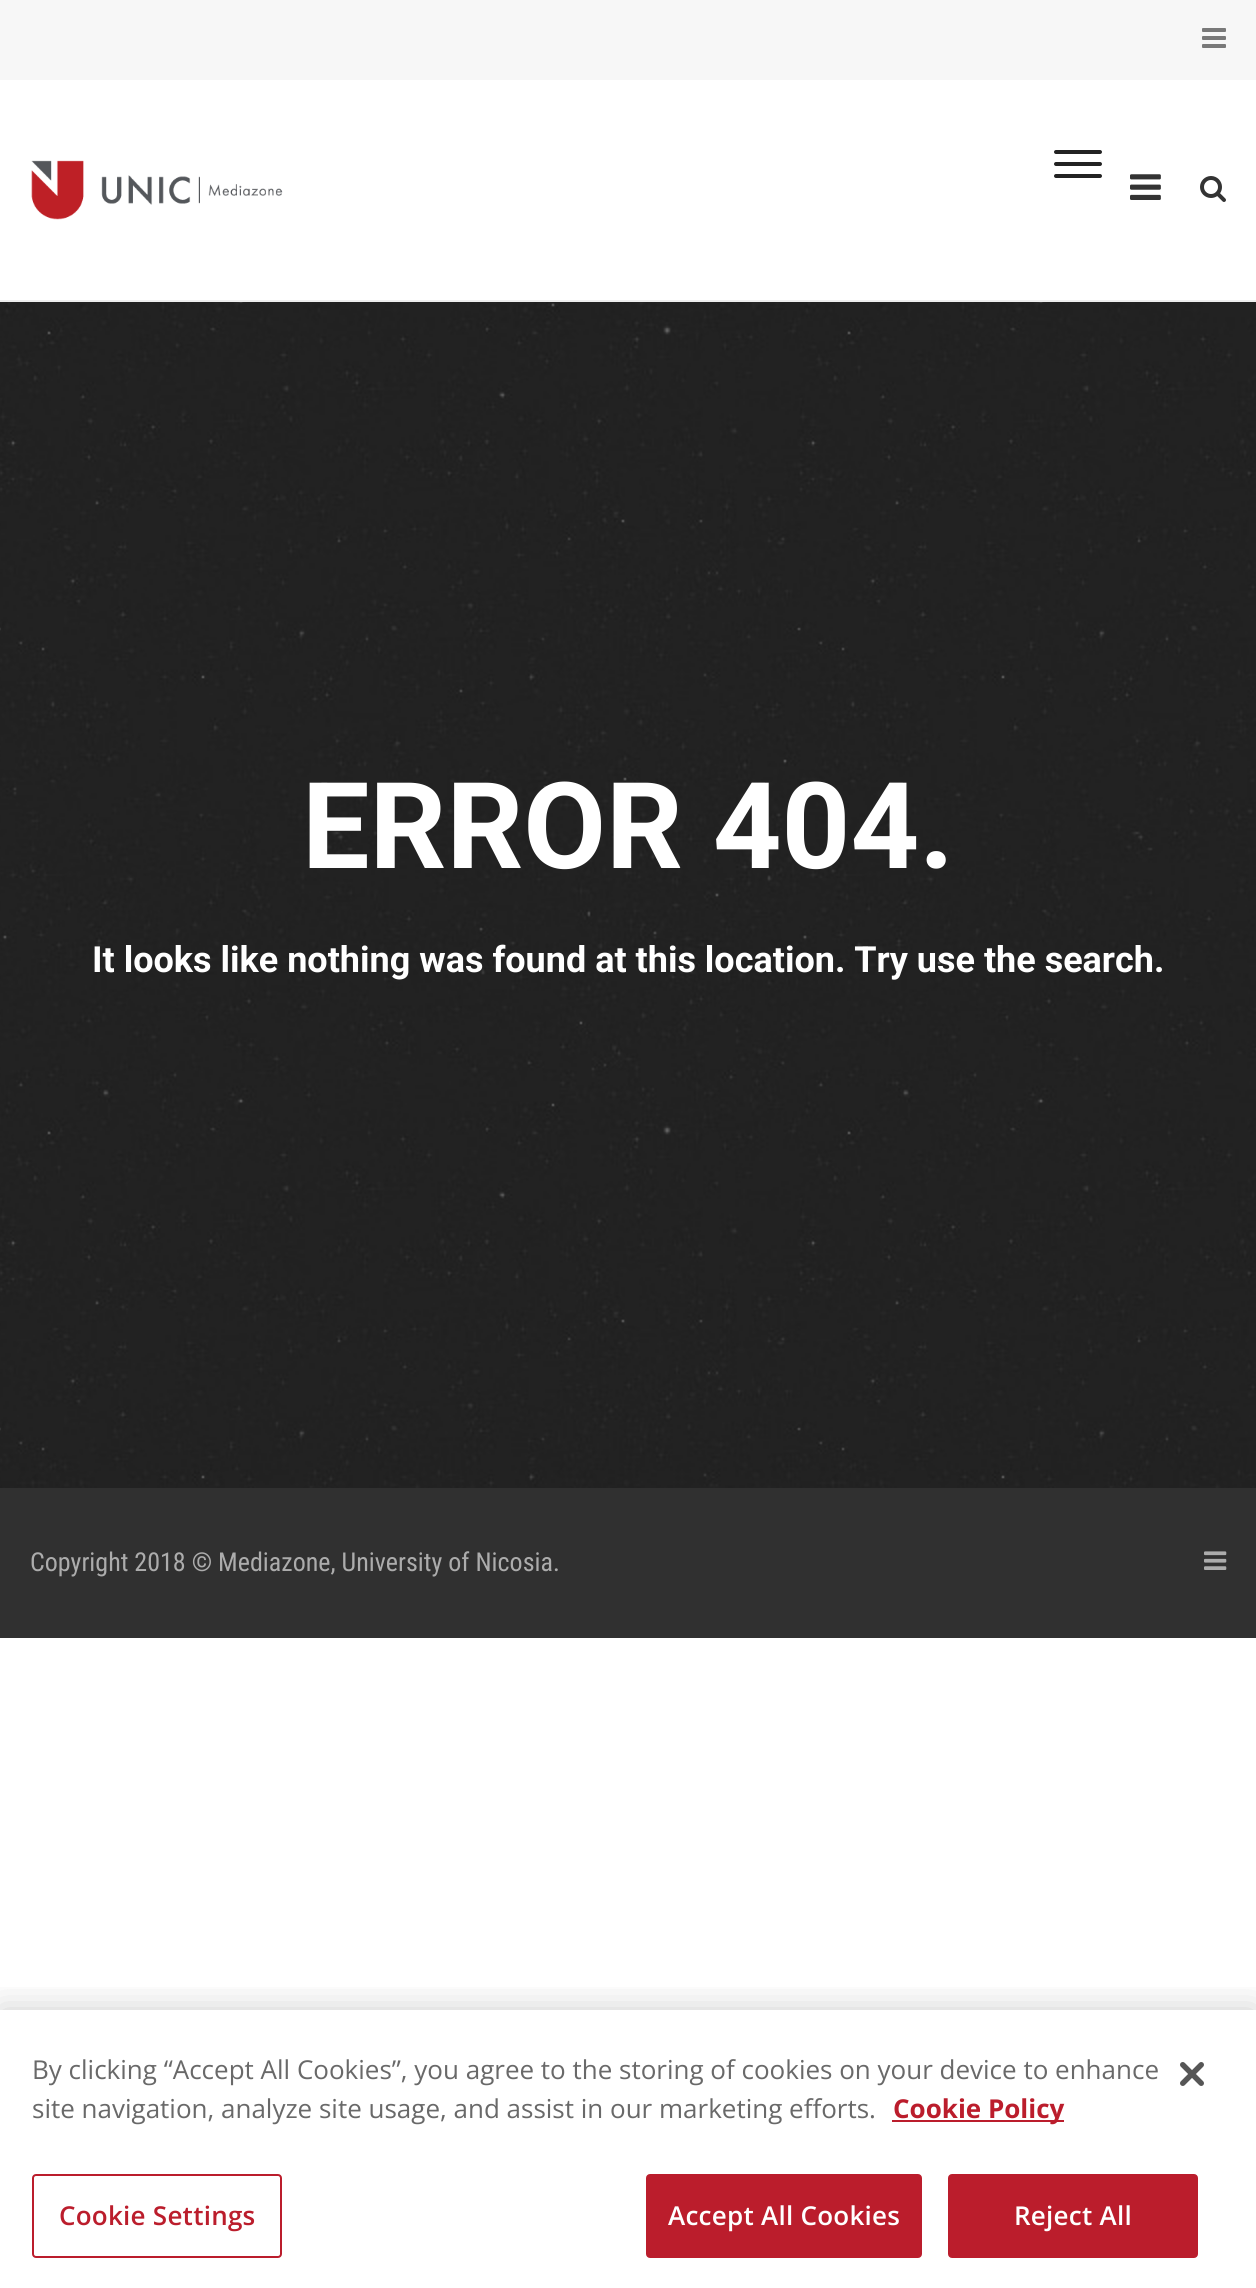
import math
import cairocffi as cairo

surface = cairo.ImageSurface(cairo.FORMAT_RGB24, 1256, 2288)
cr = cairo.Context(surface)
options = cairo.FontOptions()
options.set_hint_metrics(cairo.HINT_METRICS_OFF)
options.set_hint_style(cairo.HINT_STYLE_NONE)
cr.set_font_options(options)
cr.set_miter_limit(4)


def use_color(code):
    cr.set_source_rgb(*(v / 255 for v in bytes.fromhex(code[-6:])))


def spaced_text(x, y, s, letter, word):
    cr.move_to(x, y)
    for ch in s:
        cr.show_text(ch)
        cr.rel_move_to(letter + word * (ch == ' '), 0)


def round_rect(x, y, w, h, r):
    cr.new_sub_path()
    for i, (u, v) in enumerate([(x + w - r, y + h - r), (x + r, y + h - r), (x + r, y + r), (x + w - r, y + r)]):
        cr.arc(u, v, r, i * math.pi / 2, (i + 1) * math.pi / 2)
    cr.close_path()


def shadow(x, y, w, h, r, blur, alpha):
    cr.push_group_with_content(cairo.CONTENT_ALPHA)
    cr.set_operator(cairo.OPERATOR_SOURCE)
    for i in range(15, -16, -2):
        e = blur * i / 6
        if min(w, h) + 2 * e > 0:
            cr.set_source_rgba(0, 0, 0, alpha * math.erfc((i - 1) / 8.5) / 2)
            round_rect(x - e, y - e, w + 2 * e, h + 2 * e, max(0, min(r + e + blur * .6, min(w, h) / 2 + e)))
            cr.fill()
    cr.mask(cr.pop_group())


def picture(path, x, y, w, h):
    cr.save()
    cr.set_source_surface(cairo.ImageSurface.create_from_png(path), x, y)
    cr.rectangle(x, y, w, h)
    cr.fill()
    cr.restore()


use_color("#ffffff")
cr.paint()
use_color("#f7f7f7")
cr.rectangle(0, 0, 1256, 80)
cr.fill()
picture("img1.png", 1202, 28, 24, 20)
picture("img2.png", 31, 160, 252, 60)
use_color("#222222")
round_rect(1054, 150, 48, 4, 2)
cr.fill()
round_rect(1054, 162, 48, 4, 2)
cr.fill()
round_rect(1054, 174, 48, 4, 2)
cr.fill()
picture("img3.png", 1130, 174, 31, 26)
picture("img4.png", 1200, 176, 26, 26)
use_color("#eeeeee")
cr.rectangle(0, 300, 1256, 2)
cr.fill()
picture("img5.png", 0, 302, 1256, 1186)
cr.select_font_face("Roboto", cairo.FONT_SLANT_NORMAL, cairo.FONT_WEIGHT_BOLD)
cr.set_font_size(120)
use_color("#ffffff")
cr.move_to(302, 868)
cr.show_text("ERROR 404.")
cr.set_font_size(36)
cr.move_to(92, 972)
cr.show_text("It looks like nothing was found at this location. Try use the search.")
use_color("#303030")
cr.rectangle(0, 1488, 1256, 150)
cr.fill()
cr.select_font_face("Roboto Condensed")
cr.set_font_size(26)
use_color("#acacac")
cr.move_to(30, 1571)
cr.show_text("Copyright 2018 © Mediazone, University of Nicosia.")
picture("img6.png", 1204, 1551, 23, 19)
cr.save()
cr.rectangle(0, 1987, 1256, 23)
cr.clip()
use_color("#000000")
shadow(0, 2010, 1256, 278, 0, 18, 0.2)
cr.restore()
cr.select_font_face("Open Sans")
use_color("#696969")
cr.move_to(32, 2079)
cr.show_text("By clicking “Accept All Cookies”, you agree to the storing of cookies on your device to enhance")
cr.move_to(32, 2118)
cr.show_text("site navigation, analyze site usage, and assist in our marketing efforts.")
use_color("#bb1d2c")
cr.rectangle(892, 2120, 172, 2)
cr.fill()
cr.select_font_face("Open Sans", cairo.FONT_SLANT_NORMAL, cairo.FONT_WEIGHT_BOLD)
cr.move_to(893, 2118)
cr.show_text("Cookie Policy")
round_rect(33, 2175, 248, 82, 3)
cr.stroke()
cr.select_font_face("Open Sans SemiBold")
spaced_text(59, 2225, "Cookie Settings", 0.25, 0)
round_rect(647, 2175, 274, 82, 3)
cr.fill_preserve()
cr.stroke()
use_color("#ffffff")
spaced_text(668, 2225, "Accept All Cookies", 0.25, 0)
use_color("#bb1d2c")
round_rect(949, 2175, 248, 82, 3)
cr.fill_preserve()
cr.stroke()
use_color("#ffffff")
spaced_text(1014, 2225, "Reject All", 0.25, 0)
picture("img7.png", 1180, 2062, 24, 24)
surface.write_to_png("result.png")
